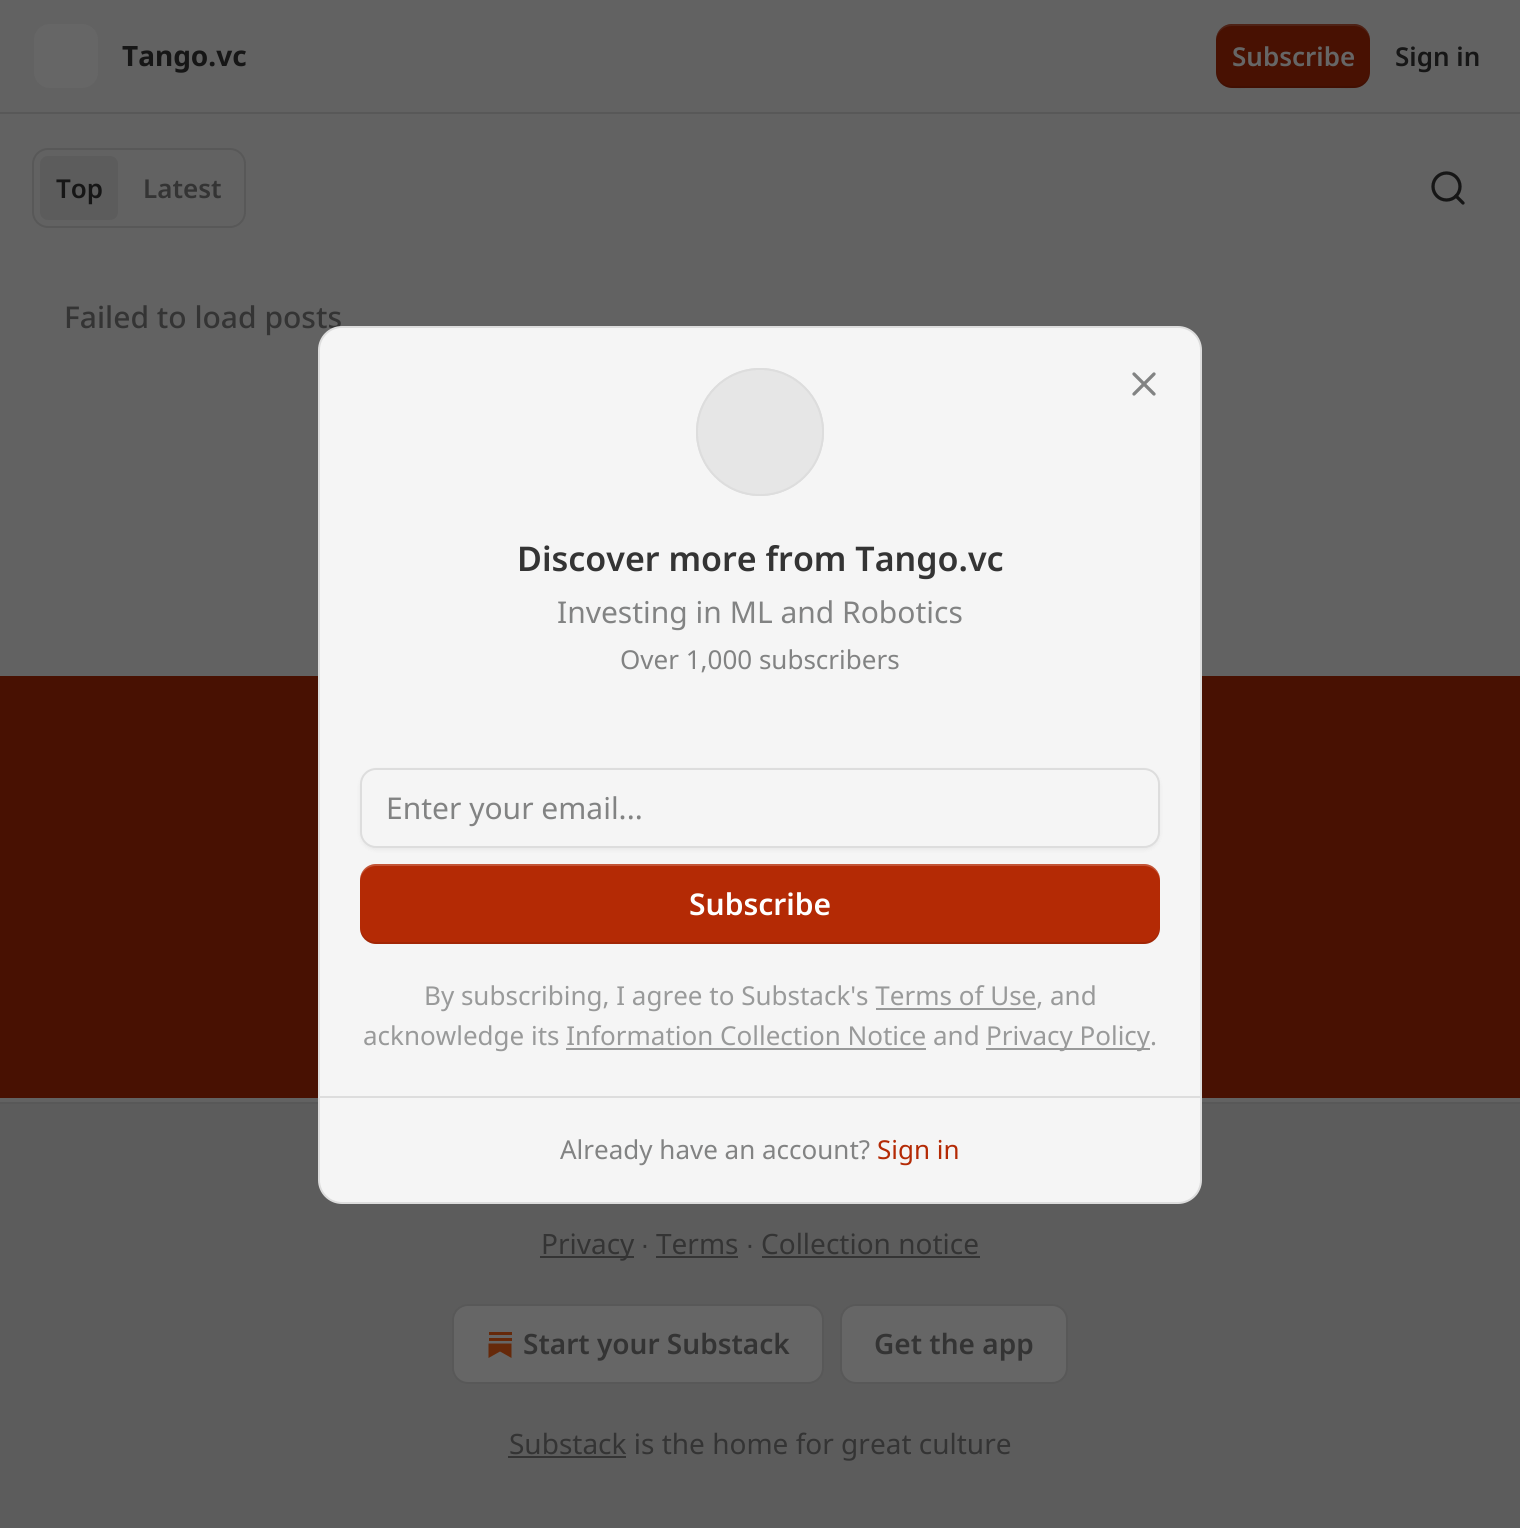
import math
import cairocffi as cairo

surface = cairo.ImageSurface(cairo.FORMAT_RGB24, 1520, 1528)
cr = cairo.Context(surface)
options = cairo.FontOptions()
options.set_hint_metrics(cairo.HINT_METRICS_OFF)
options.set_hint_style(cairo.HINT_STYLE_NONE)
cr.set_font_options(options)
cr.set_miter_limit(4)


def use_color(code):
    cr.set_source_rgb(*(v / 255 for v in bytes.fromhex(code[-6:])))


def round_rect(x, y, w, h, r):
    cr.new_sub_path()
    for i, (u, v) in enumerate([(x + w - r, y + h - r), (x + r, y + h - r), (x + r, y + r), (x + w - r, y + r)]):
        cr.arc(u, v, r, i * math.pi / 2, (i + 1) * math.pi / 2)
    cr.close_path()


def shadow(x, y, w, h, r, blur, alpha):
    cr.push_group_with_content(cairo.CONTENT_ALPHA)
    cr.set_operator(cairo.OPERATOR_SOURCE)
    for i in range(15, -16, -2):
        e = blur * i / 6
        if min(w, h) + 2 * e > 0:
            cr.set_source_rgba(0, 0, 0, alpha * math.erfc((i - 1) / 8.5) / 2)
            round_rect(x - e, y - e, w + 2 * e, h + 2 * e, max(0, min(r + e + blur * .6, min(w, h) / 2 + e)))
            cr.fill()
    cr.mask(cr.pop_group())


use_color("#626262")
cr.paint()
use_color("#585858")
cr.rectangle(0, 112, 1520, 2)
cr.fill()
use_color("#666666")
round_rect(34, 24, 64, 64, 16)
cr.fill()
cr.select_font_face("Noto Sans", cairo.FONT_SLANT_NORMAL, cairo.FONT_WEIGHT_BOLD)
cr.set_font_size(28)
use_color("#161616")
cr.move_to(122, 66)
cr.show_text("Tango.vc")
use_color("#481102")
round_rect(1216, 24, 154, 64, 16)
cr.fill()
cr.set_source_rgba(0, 0, 0, 0.1)
cr.new_path()
cr.move_to(1216, 70)
cr.curve_to(1216, 92, 1236, 88, 1252, 88)
cr.line_to(1334, 88)
cr.curve_to(1350, 88, 1370, 92, 1370, 70)
cr.curve_to(1370, 79, 1363, 86, 1354, 86)
cr.line_to(1232, 86)
cr.curve_to(1223, 86, 1216, 79, 1216, 70)
cr.close_path()
cr.fill()
cr.set_source_rgba(0.4, 0.4, 0.4, 0.2)
cr.new_path()
cr.move_to(1232, 26)
cr.line_to(1354, 26)
cr.curve_to(1363, 26, 1370, 33, 1370, 42)
cr.curve_to(1370, 20, 1350, 24, 1334, 24)
cr.line_to(1252, 24)
cr.curve_to(1236, 24, 1216, 20, 1216, 42)
cr.curve_to(1216, 33, 1223, 26, 1232, 26)
cr.close_path()
cr.fill()
cr.select_font_face("Noto Sans SemiBold")
cr.set_font_size(26)
use_color("#666666")
cr.move_to(1232, 66)
cr.show_text("Subscribe")
use_color("#161616")
cr.move_to(1395, 66)
cr.show_text("Sign in")
round_rect(33, 149, 212, 78, 15)
use_color("#585858")
cr.stroke()
use_color("#5c5c5c")
round_rect(40, 156, 78, 64, 8)
cr.fill()
use_color("#161616")
cr.move_to(56, 198)
cr.show_text("Top")
use_color("#343434")
cr.move_to(143, 198)
cr.show_text("Latest")
cr.new_path()
cr.arc(1446.5, 186.5, 13.5, 0, 2 * math.pi)
use_color("#161616")
cr.set_line_width(3.3)
cr.stroke()
cr.new_path()
cr.move_to(1463, 203)
cr.line_to(1456, 196)
cr.set_line_cap(cairo.LINE_CAP_ROUND)
cr.set_line_join(cairo.LINE_JOIN_ROUND)
cr.stroke()
cr.select_font_face("Noto Sans Medium")
cr.set_font_size(30)
use_color("#343434")
cr.move_to(64, 328)
cr.show_text("Failed to load posts")
use_color("#481102")
cr.rectangle(0, 676, 1520, 422)
cr.fill()
use_color("#5c5c5c")
cr.rectangle(0, 1104, 1520, 424)
cr.fill()
use_color("#585858")
cr.rectangle(0, 1102, 1520, 2)
cr.fill()
use_color("#f5f5f5")
round_rect(319, 327, 882, 876, 23)
cr.fill_preserve()
use_color("#dddddd")
cr.set_line_width(2)
cr.set_line_cap(cairo.LINE_CAP_BUTT)
cr.set_line_join(cairo.LINE_JOIN_MITER)
cr.stroke()
cr.arc(760, 432, 63, 0, 2 * math.pi)
cr.stroke()
use_color("#e6e6e6")
cr.arc(760, 432, 63, 0, 2 * math.pi)
cr.fill_preserve()
use_color("#dddddd")
cr.stroke()
cr.new_path()
cr.move_to(1154, 374)
cr.line_to(1134, 394)
cr.move_to(1134, 374)
cr.line_to(1154, 394)
use_color("#828383")
cr.set_line_width(3.3)
cr.set_line_cap(cairo.LINE_CAP_ROUND)
cr.set_line_join(cairo.LINE_JOIN_ROUND)
cr.stroke()
cr.select_font_face("Noto Sans SemiBold")
cr.set_font_size(34)
use_color("#343434")
cr.move_to(517, 571)
cr.show_text("Discover more from Tango.vc")
cr.select_font_face("Noto Sans")
cr.set_font_size(30)
use_color("#828383")
cr.move_to(557, 623)
cr.show_text("Investing in ML and Robotics")
cr.set_font_size(26)
cr.move_to(620, 669)
cr.show_text("Over 1,000 subscribers")
use_color("#000000")
shadow(360, 770, 800, 80, 16, 2, 0.05)
use_color("#f5f5f5")
round_rect(361, 769, 798, 78, 15)
cr.fill_preserve()
use_color("#dddddd")
cr.set_line_width(2)
cr.set_line_cap(cairo.LINE_CAP_BUTT)
cr.set_line_join(cairo.LINE_JOIN_MITER)
cr.stroke()
cr.set_font_size(30)
use_color("#828383")
cr.move_to(386, 819)
cr.show_text("Enter your email...")
use_color("#b42a05")
round_rect(360, 864, 800, 80, 16)
cr.fill()
cr.set_source_rgba(0, 0, 0, 0.1)
cr.new_path()
cr.move_to(360, 926)
cr.line_to(360, 928)
cr.curve_to(360, 937, 367, 944, 376, 944)
cr.line_to(1144, 944)
cr.curve_to(1153, 944, 1160, 937, 1160, 928)
cr.line_to(1160, 926)
cr.curve_to(1160, 935, 1153, 942, 1144, 942)
cr.line_to(376, 942)
cr.curve_to(367, 942, 360, 935, 360, 926)
cr.close_path()
cr.fill()
cr.set_source_rgba(1, 1, 1, 0.2)
cr.new_path()
cr.move_to(376, 866)
cr.line_to(1144, 866)
cr.curve_to(1153, 866, 1160, 873, 1160, 882)
cr.line_to(1160, 880)
cr.curve_to(1160, 871, 1153, 864, 1144, 864)
cr.line_to(376, 864)
cr.curve_to(367, 864, 360, 871, 360, 880)
cr.line_to(360, 882)
cr.curve_to(360, 873, 367, 866, 376, 866)
cr.close_path()
cr.fill()
cr.select_font_face("Noto Sans SemiBold")
use_color("#ffffff")
cr.move_to(689, 915)
cr.show_text("Subscribe")
cr.select_font_face("Noto Sans")
cr.set_font_size(26)
use_color("#999a9a")
cr.move_to(424, 1005)
cr.show_text("By subscribing, I agree to Substack's Terms of Use, and")
cr.rectangle(876, 1008, 160, 2)
cr.fill()
cr.move_to(363, 1045)
cr.show_text("acknowledge its Information Collection Notice and")
cr.rectangle(986, 1048, 164, 2)
cr.fill()
cr.move_to(986, 1045)
cr.show_text("Privacy Policy.")
cr.rectangle(566, 1048, 360, 2)
cr.fill()
use_color("#dddddd")
cr.rectangle(320, 1096, 880, 2)
cr.fill()
use_color("#828383")
cr.move_to(560, 1159)
cr.show_text("Already have an account?")
use_color("#b42a05")
cr.move_to(877, 1159)
cr.show_text("Sign in")
use_color("#343434")
cr.rectangle(540, 1256, 94, 2)
cr.fill()
cr.set_font_size(28)
cr.move_to(541, 1254)
cr.show_text("Privacy")
cr.select_font_face("Liberation Sans")
cr.move_to(641, 1254)
cr.show_text("∙")
cr.select_font_face("Noto Sans")
cr.move_to(656, 1254)
cr.show_text("Terms")
cr.rectangle(656, 1256, 82, 2)
cr.fill()
cr.select_font_face("Liberation Sans")
cr.move_to(746, 1254)
cr.show_text("∙")
cr.select_font_face("Noto Sans")
cr.move_to(761, 1254)
cr.show_text("Collection notice")
cr.rectangle(762, 1256, 218, 2)
cr.fill()
use_color("#666666")
round_rect(453, 1305, 370, 78, 15)
cr.fill_preserve()
use_color("#585858")
cr.stroke()
use_color("#66290a")
cr.rectangle(489, 1338, 23, 3)
cr.fill()
cr.new_path()
cr.move_to(488.5, 1343.5)
cr.line_to(488.5, 1358)
cr.line_to(500, 1351.5)
cr.line_to(511.5, 1358)
cr.line_to(511.5, 1343.5)
cr.close_path()
cr.fill()
cr.rectangle(489, 1332, 23, 3)
cr.fill()
cr.select_font_face("Noto Sans SemiBold")
use_color("#343434")
cr.move_to(523, 1354)
cr.show_text("Start your Substack")
use_color("#666666")
round_rect(841, 1305, 226, 78, 15)
cr.fill_preserve()
use_color("#585858")
cr.stroke()
use_color("#343434")
cr.move_to(874, 1354)
cr.show_text("Get the app")
cr.rectangle(508, 1456, 118, 2)
cr.fill()
cr.select_font_face("Noto Sans")
cr.move_to(509, 1454)
cr.show_text("Substack is the home for great culture")
surface.write_to_png("result.png")
